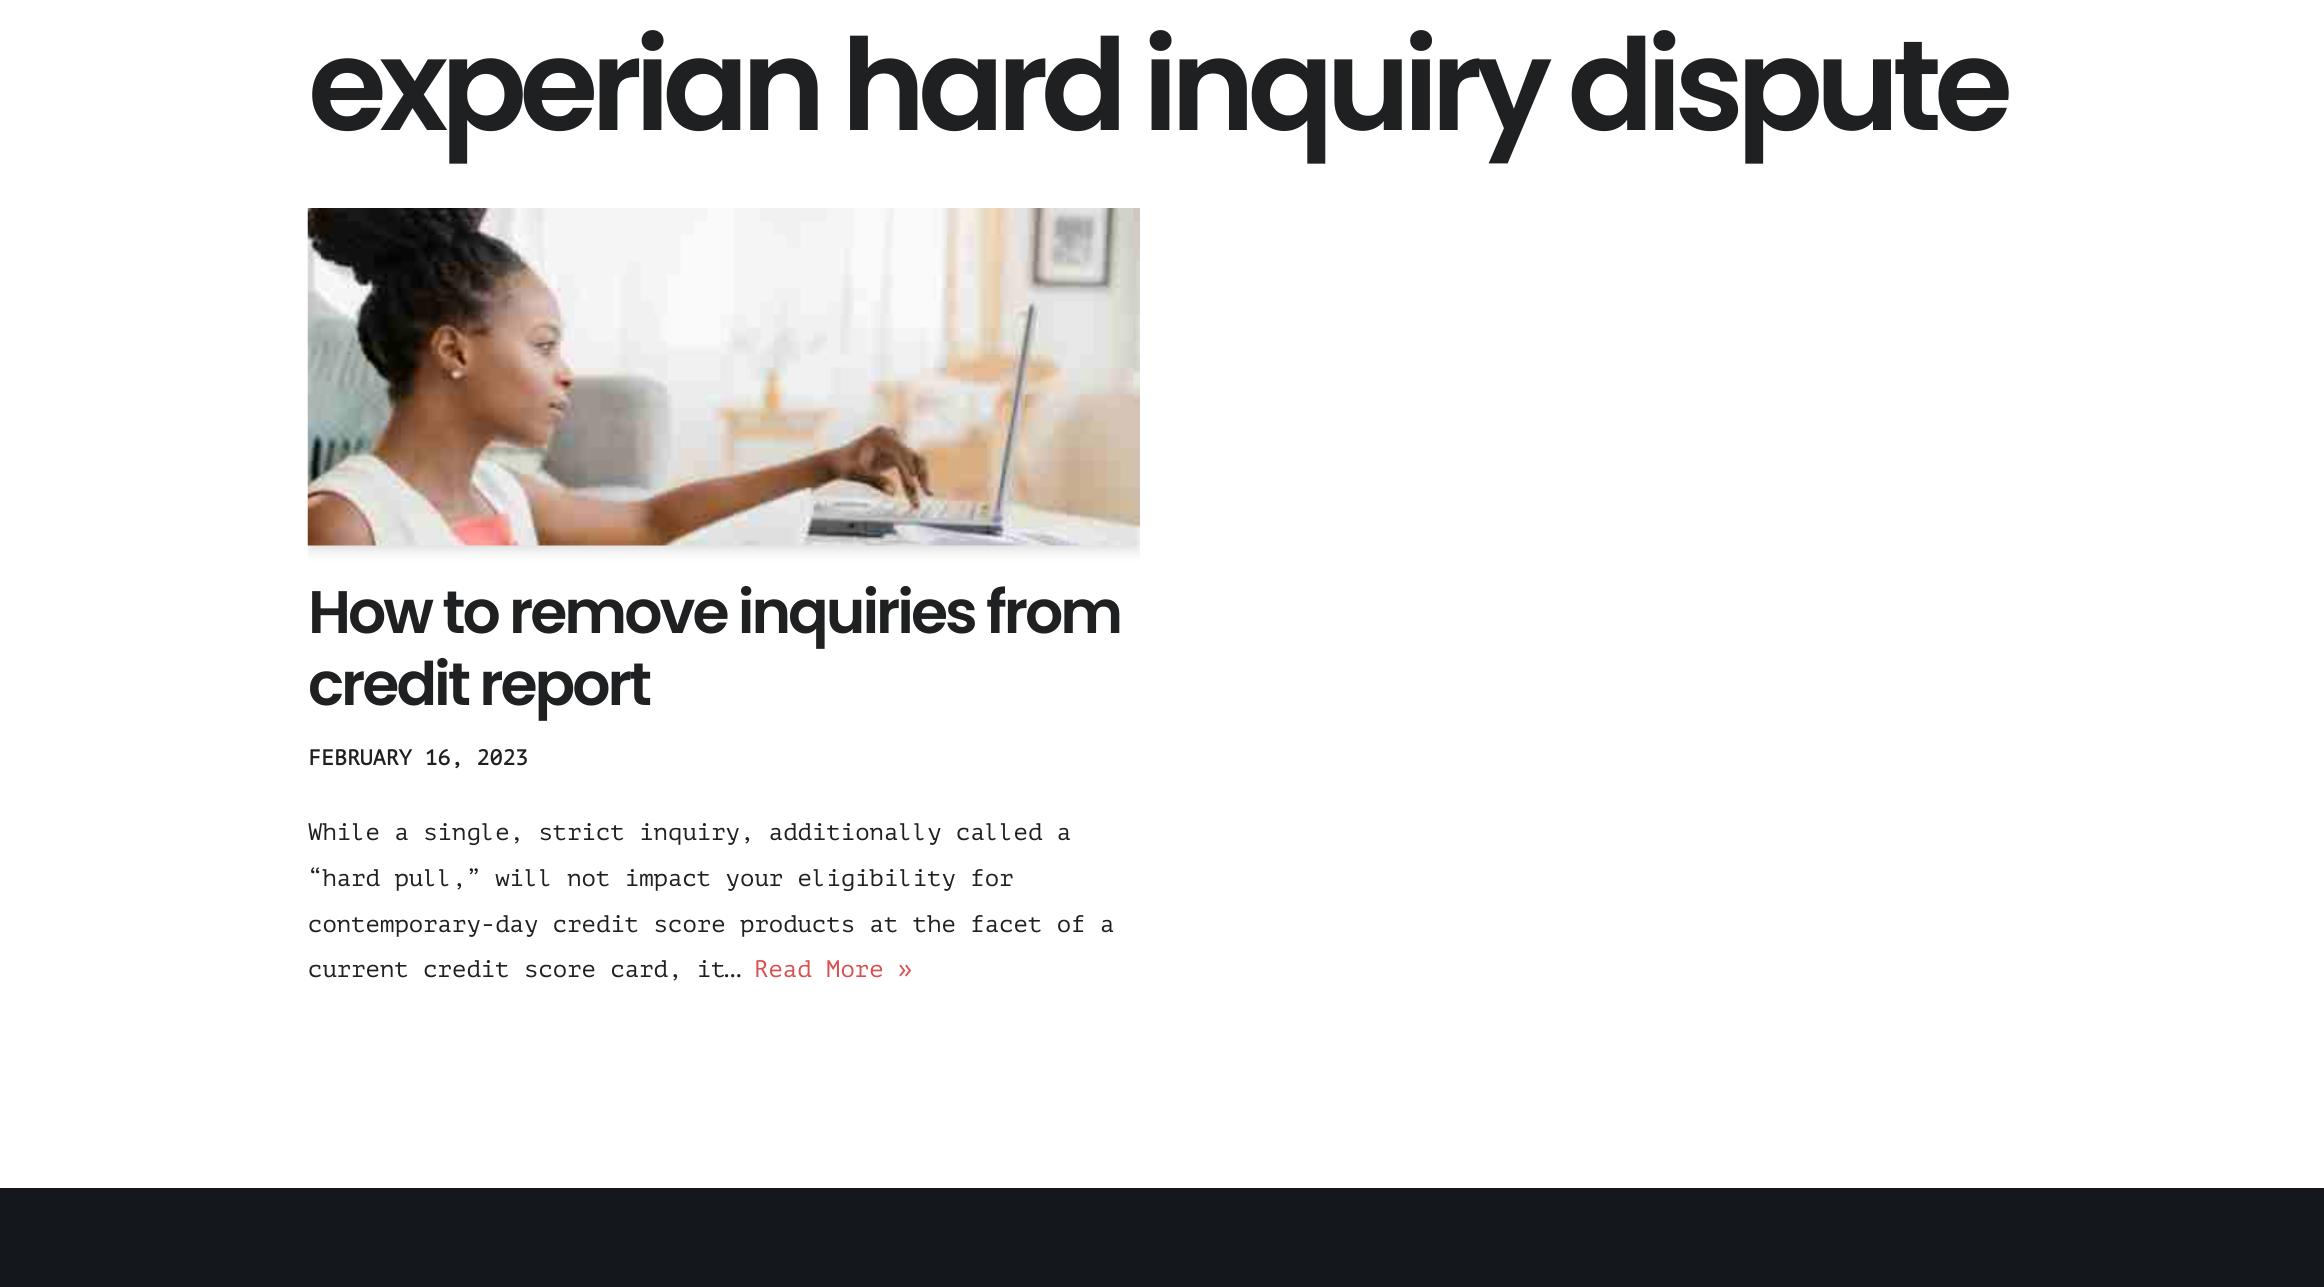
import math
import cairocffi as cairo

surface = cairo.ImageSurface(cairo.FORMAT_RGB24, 2324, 1287)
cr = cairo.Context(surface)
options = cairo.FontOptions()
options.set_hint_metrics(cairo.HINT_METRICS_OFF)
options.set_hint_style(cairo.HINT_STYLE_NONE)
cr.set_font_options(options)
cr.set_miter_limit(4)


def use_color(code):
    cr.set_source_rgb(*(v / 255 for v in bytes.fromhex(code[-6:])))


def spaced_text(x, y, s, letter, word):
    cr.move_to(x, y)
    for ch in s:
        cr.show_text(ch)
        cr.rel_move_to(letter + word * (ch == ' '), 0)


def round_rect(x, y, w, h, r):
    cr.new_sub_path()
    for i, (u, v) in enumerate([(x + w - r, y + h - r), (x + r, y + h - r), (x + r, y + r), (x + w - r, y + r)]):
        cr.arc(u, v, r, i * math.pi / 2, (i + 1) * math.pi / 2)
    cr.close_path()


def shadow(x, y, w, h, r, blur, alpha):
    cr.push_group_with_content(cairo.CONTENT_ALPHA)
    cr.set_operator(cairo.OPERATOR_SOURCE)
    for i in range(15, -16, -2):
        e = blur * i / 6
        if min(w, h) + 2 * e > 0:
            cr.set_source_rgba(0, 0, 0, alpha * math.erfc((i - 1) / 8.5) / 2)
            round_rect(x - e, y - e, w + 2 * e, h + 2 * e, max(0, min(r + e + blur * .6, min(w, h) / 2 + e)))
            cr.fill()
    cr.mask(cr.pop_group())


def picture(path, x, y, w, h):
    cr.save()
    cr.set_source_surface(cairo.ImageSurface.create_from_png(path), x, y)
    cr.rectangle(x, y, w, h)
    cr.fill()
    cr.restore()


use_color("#ffffff")
cr.paint()
cr.select_font_face("Poppins SemiBold")
cr.set_font_size(127.5)
use_color("#1f2021")
spaced_text(308, 130, "experian hard inquiry dispute", -7.5, 0)
cr.save()
cr.rectangle(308, 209, 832, 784)
cr.clip()
use_color("#000000")
shadow(308, 215, 832, 337, 0, 6, 0.1)
cr.restore()
use_color("#000000")
shadow(315, 221, 818, 322, 0, 4.5, 0.1)
picture("img1.png", 307, 208, 833, 338)
cr.set_font_size(60)
use_color("#1f2021")
spaced_text(308, 633, "How to remove inquiries from", -3, 0)
spaced_text(308, 705, "credit report", -3, 0)
cr.select_font_face("PT Mono", cairo.FONT_SLANT_NORMAL, cairo.FONT_WEIGHT_BOLD)
cr.set_font_size(21.6)
cr.move_to(308, 765)
cr.show_text("FEBRUARY 16, 2023")
cr.select_font_face("PT Mono")
cr.set_font_size(24)
cr.move_to(308, 840)
cr.show_text("While a single, strict inquiry, additionally called a")
cr.move_to(308, 886)
cr.show_text("“hard pull,” will not impact your eligibility for")
cr.move_to(308, 932)
cr.show_text("contemporary-day credit score products at the facet of a")
cr.move_to(308, 977)
cr.show_text("current credit score card, it…")
use_color("#d94f4f")
cr.move_to(754, 977)
cr.show_text("Read More »")
use_color("#14171c")
cr.rectangle(0, 1188, 2324, 99)
cr.fill()
surface.write_to_png("result.png")
